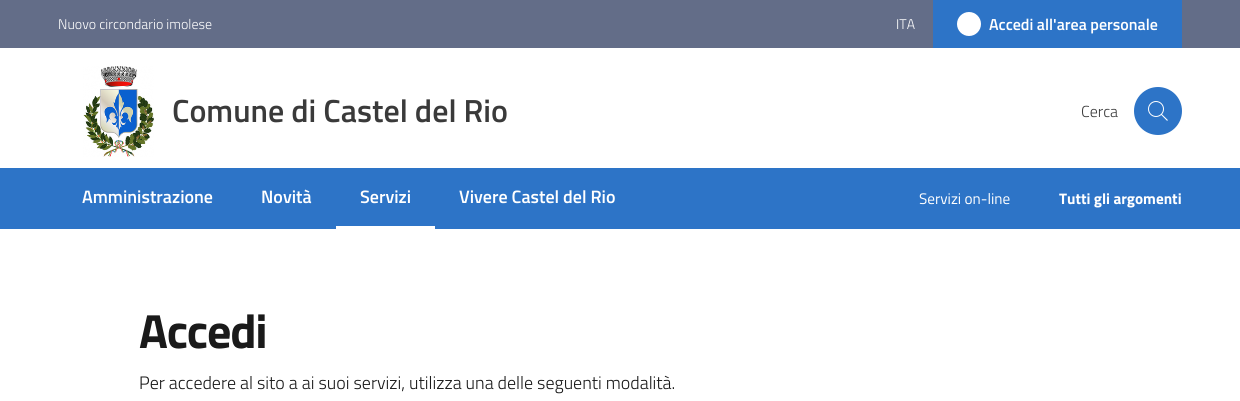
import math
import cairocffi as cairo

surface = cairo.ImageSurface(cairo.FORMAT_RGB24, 1240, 401)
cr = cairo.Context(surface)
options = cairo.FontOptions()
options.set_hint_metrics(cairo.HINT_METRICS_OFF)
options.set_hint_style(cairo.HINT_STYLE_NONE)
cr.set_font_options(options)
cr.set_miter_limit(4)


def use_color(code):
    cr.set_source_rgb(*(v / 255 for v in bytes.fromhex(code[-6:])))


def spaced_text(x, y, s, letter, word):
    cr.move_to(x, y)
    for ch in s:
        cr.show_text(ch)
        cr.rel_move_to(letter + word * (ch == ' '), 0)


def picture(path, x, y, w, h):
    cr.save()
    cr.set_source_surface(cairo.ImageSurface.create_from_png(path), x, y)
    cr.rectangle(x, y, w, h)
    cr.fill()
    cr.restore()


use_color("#ffffff")
cr.paint()
use_color("#636d88")
cr.rectangle(0, 0, 1240, 48)
cr.fill()
cr.select_font_face("Titillium Web Light")
cr.set_font_size(14)
use_color("#ffffff")
cr.move_to(58, 29)
cr.show_text("Nuovo circondario imolese")
cr.move_to(896, 29)
cr.show_text("ITA")
use_color("#2d74c7")
cr.rectangle(933, 0, 249, 48)
cr.fill()
use_color("#ffffff")
cr.arc(969, 24, 12, 0, 2 * math.pi)
cr.fill()
cr.select_font_face("Titillium Web SemiBold")
cr.set_font_size(16)
cr.move_to(989, 30)
cr.show_text("Accedi all'area personale")
picture("img1.png", 83, 66, 71, 91)
cr.set_font_size(32)
use_color("#3a3a3a")
cr.move_to(172, 122)
cr.show_text("Comune di Castel del Rio")
cr.select_font_face("Titillium Web Light")
cr.set_font_size(16)
cr.move_to(1081, 117)
cr.show_text("Cerca")
use_color("#2d74c7")
cr.new_path()
cr.arc(1158, 111, 23, 0, 2 * math.pi)
cr.fill_preserve()
cr.stroke()
picture("img2.png", 1148, 101, 20, 20)
cr.rectangle(0, 168, 1240, 61)
cr.fill()
cr.select_font_face("Titillium Web SemiBold")
cr.set_font_size(18)
use_color("#ffffff")
cr.move_to(82, 203)
cr.show_text("Amministrazione")
cr.move_to(261, 203)
cr.show_text("Novità")
cr.rectangle(336, 226, 99, 3)
cr.fill()
cr.move_to(360, 203)
cr.show_text("Servizi")
cr.move_to(459, 203)
cr.show_text("Vivere Castel del Rio")
cr.select_font_face("Titillium Web")
cr.set_font_size(15.25)
cr.move_to(919, 204)
cr.show_text("Servizi on-line")
cr.select_font_face("Titillium Web", cairo.FONT_SLANT_NORMAL, cairo.FONT_WEIGHT_BOLD)
cr.move_to(1059, 204)
cr.show_text("Tutti gli argomenti")
cr.set_font_size(48)
use_color("#1a1a1a")
spaced_text(139, 348, "Accedi", -1.25, 0)
cr.select_font_face("Titillium Web Light")
cr.set_font_size(18)
cr.move_to(139, 389)
cr.show_text("Per accedere al sito a ai suoi servizi, utilizza una delle seguenti modalità.")
surface.write_to_png("result.png")
